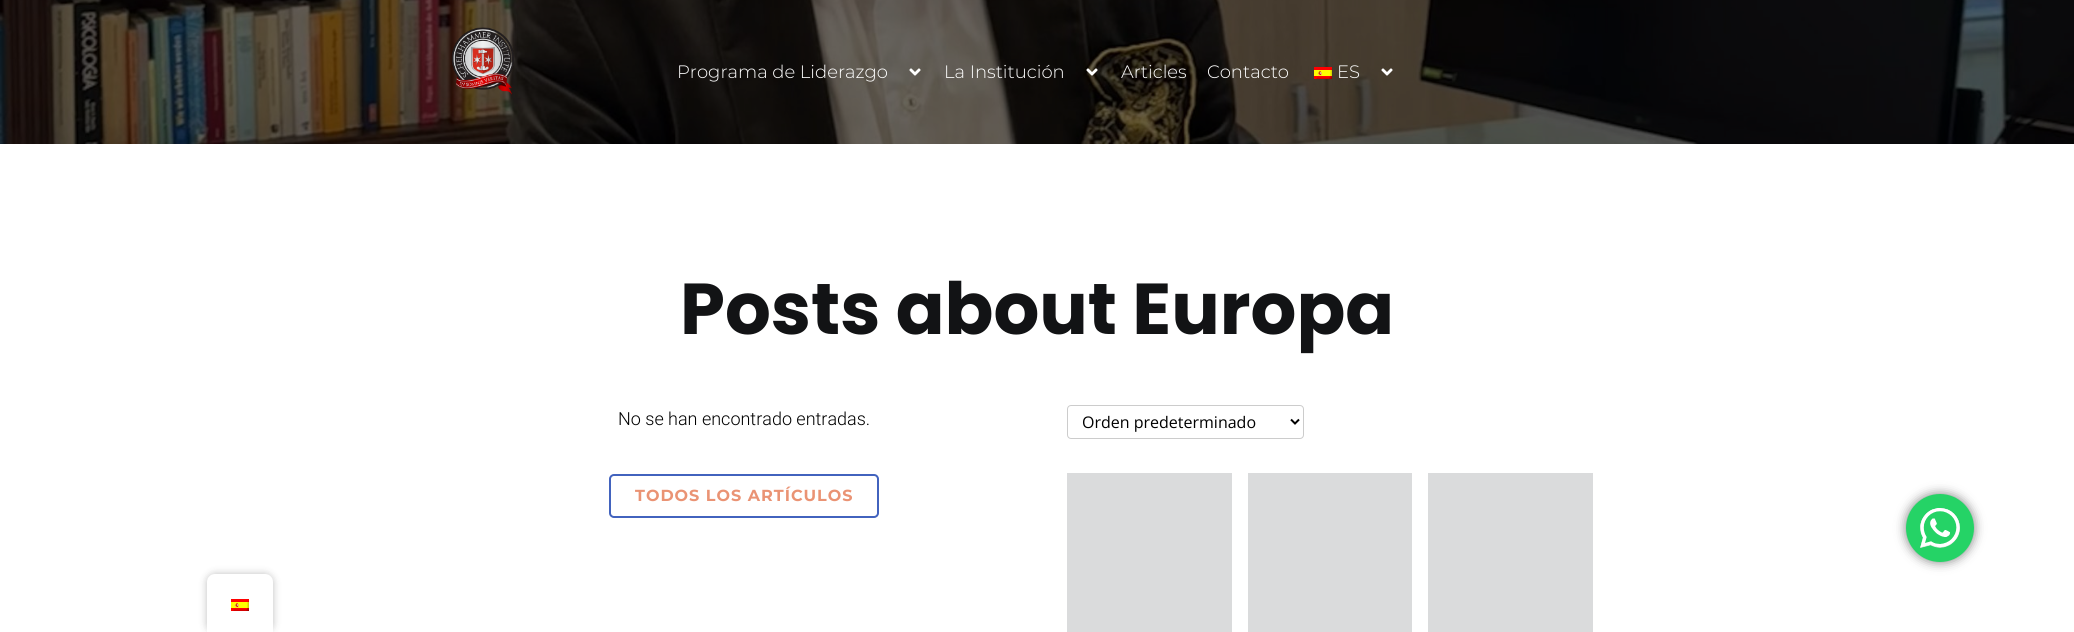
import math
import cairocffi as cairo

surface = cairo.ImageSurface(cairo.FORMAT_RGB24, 2074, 632)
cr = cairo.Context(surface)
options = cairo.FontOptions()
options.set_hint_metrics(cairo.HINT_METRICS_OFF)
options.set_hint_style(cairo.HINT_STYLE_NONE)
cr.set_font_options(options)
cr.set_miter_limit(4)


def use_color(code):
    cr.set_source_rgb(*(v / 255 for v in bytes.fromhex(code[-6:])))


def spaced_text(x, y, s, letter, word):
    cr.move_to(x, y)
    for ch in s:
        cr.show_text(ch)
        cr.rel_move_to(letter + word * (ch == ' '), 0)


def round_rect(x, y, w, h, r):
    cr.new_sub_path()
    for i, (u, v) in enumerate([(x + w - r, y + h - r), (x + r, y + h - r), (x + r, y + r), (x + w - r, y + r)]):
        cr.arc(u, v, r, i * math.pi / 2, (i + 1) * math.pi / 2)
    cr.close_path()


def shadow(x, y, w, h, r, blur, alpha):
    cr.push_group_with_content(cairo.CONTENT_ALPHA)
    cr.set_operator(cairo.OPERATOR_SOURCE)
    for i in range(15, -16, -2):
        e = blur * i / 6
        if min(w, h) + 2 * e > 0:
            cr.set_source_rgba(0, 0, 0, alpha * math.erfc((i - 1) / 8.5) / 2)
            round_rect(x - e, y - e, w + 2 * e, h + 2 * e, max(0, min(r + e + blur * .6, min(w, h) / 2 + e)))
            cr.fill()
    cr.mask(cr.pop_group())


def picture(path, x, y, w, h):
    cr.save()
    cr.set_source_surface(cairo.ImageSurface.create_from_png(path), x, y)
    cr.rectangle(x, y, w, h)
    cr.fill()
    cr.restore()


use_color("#ffffff")
cr.paint()
picture("img1.png", 0, 0, 2074, 144)
picture("img2.png", 451, 27, 63, 68)
cr.select_font_face("Montserrat Light")
cr.set_font_size(18)
use_color("#ffffff")
cr.move_to(677, 78)
cr.show_text("Programa de Liderazgo")
picture("img3.png", 909, 68, 12, 8)
cr.move_to(944, 78)
cr.show_text("La Institución")
picture("img4.png", 1086, 68, 12, 8)
cr.move_to(1121, 78)
cr.show_text("Articles")
cr.move_to(1207, 78)
cr.show_text("Contacto")
picture("img5.png", 1314, 67, 18, 12)
cr.move_to(1337, 78)
cr.show_text("ES")
picture("img6.png", 1381, 68, 12, 8)
cr.select_font_face("Poppins", cairo.FONT_SLANT_NORMAL, cairo.FONT_WEIGHT_BOLD)
cr.set_font_size(72)
use_color("#121315")
cr.move_to(680, 334)
cr.show_text("Posts about Europa")
cr.select_font_face("Roboto Light")
cr.set_font_size(18)
use_color("#000000")
cr.move_to(618, 425)
cr.show_text("No se han encontrado entradas.")
round_rect(610, 475, 268, 42, 4)
use_color("#4263be")
cr.stroke()
cr.select_font_face("Montserrat", cairo.FONT_SLANT_NORMAL, cairo.FONT_WEIGHT_BOLD)
cr.set_font_size(16)
use_color("#ea9374")
spaced_text(635, 501, "TODOS LOS ARTÍCULOS", 1, 0)
round_rect(1067.5, 405.5, 236, 33, 3.5)
use_color("#cccccc")
cr.set_line_width(1)
cr.stroke()
cr.new_path()
cr.move_to(1291, 419.5)
cr.line_to(1295, 423.5)
cr.line_to(1299, 419.5)
use_color("#000000")
cr.set_line_width(2)
cr.stroke()
cr.select_font_face("Open Sans")
cr.move_to(1082, 428)
cr.show_text("Orden predeterminado")
use_color("#dadbdc")
cr.rectangle(1067, 473, 165, 159)
cr.fill()
cr.rectangle(1248, 473, 164, 159)
cr.fill()
cr.rectangle(1428, 473, 165, 159)
cr.fill()
use_color("#000000")
shadow(1906, 494, 68, 68, 34, 5.5, 0.5)
use_color("#25d366")
cr.arc(1940, 528, 34, 0, 2 * math.pi)
cr.fill()
picture("img7.png", 1920, 508, 40, 40)
use_color("#000000")
shadow(207, 574, 66, 58, 8, 4, 0.25)
use_color("#ffffff")
cr.new_path()
cr.move_to(215, 574)
cr.line_to(265, 574)
cr.curve_to(269.5, 574, 273, 577.5, 273, 582)
cr.line_to(273, 632)
cr.line_to(207, 632)
cr.line_to(207, 582)
cr.curve_to(207, 577.5, 210.5, 574, 215, 574)
cr.close_path()
cr.fill()
picture("img5.png", 231, 599, 18, 12)
surface.write_to_png("result.png")
